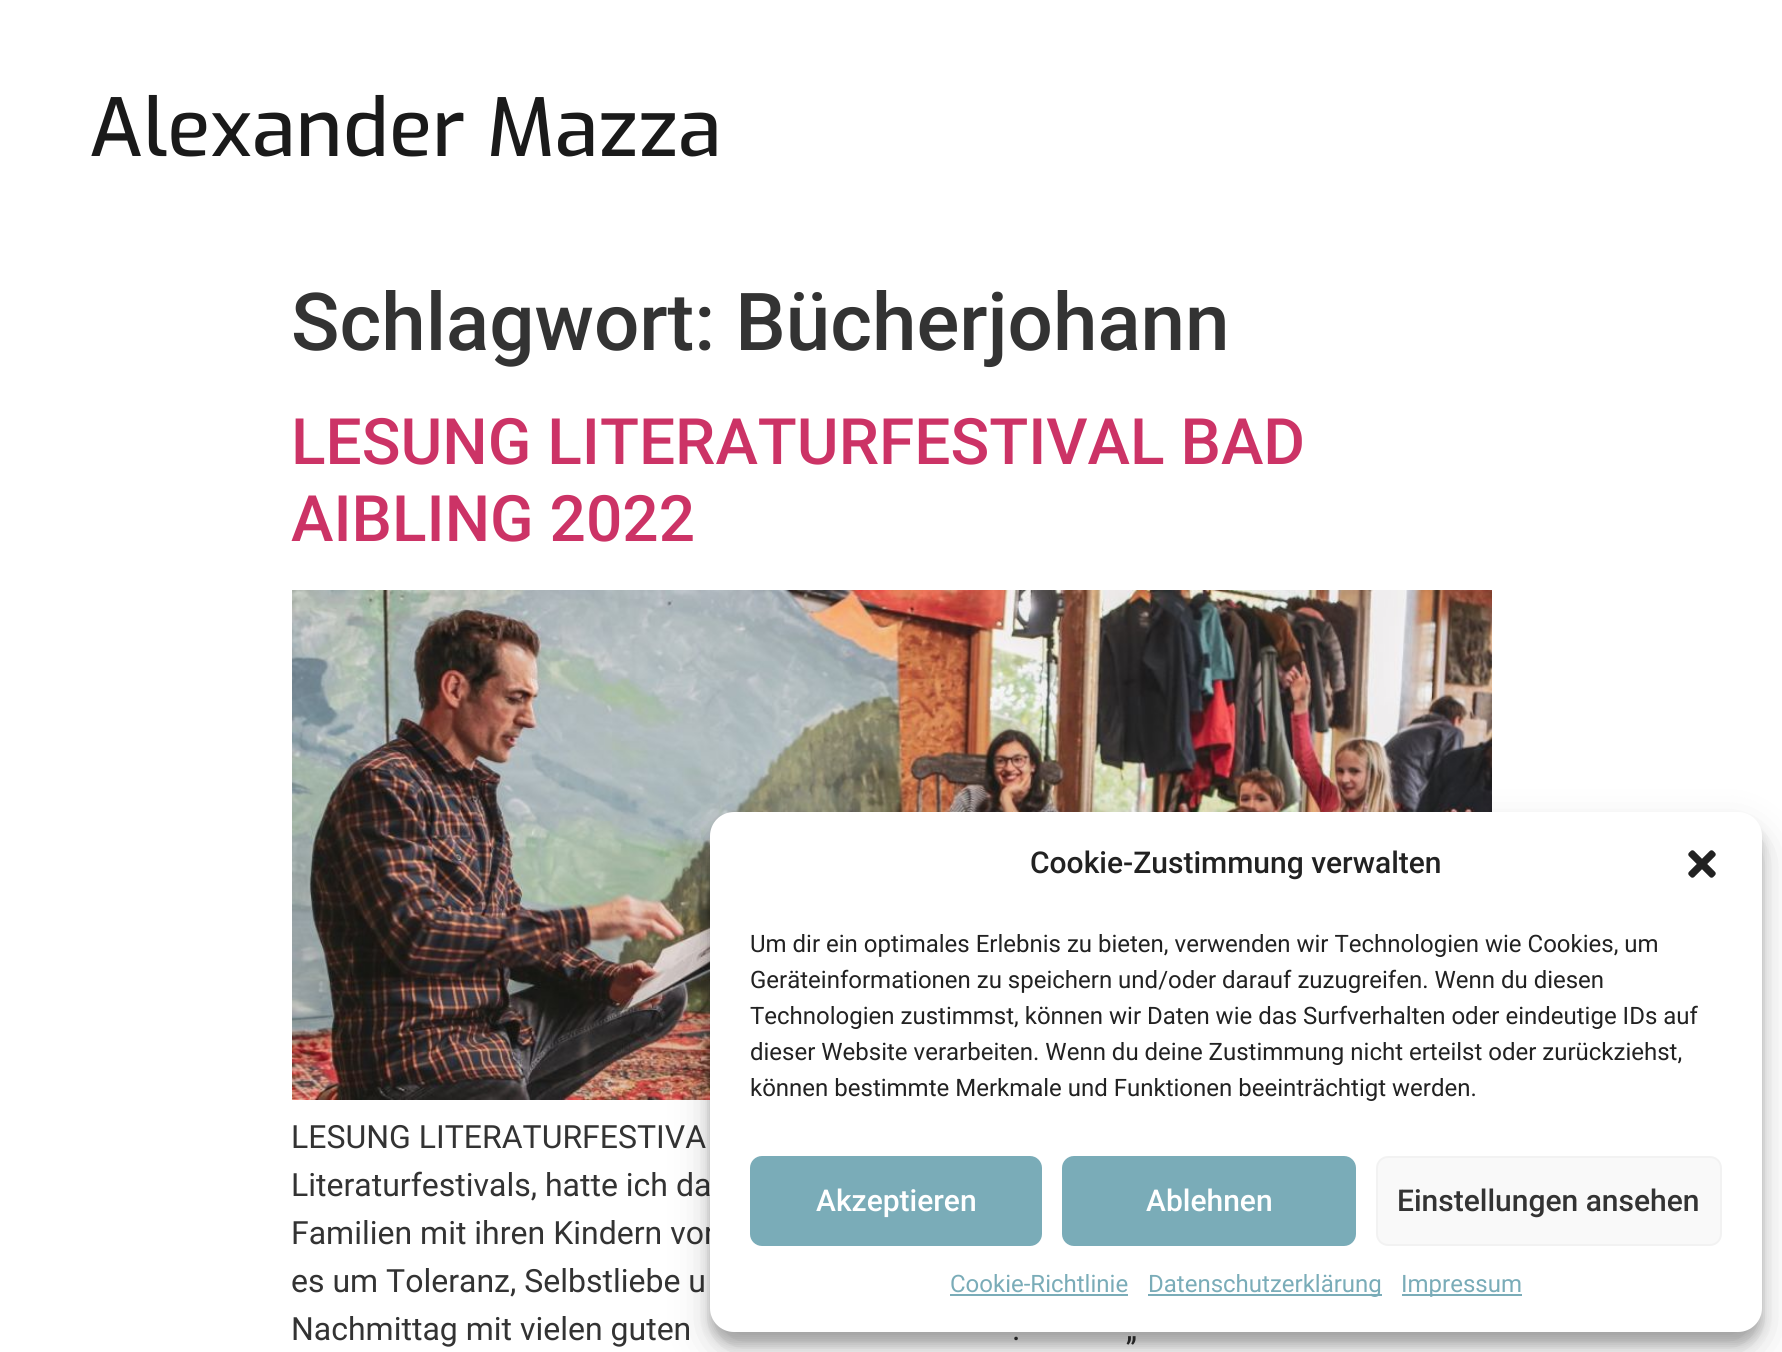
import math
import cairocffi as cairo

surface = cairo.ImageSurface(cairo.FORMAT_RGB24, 1782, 1352)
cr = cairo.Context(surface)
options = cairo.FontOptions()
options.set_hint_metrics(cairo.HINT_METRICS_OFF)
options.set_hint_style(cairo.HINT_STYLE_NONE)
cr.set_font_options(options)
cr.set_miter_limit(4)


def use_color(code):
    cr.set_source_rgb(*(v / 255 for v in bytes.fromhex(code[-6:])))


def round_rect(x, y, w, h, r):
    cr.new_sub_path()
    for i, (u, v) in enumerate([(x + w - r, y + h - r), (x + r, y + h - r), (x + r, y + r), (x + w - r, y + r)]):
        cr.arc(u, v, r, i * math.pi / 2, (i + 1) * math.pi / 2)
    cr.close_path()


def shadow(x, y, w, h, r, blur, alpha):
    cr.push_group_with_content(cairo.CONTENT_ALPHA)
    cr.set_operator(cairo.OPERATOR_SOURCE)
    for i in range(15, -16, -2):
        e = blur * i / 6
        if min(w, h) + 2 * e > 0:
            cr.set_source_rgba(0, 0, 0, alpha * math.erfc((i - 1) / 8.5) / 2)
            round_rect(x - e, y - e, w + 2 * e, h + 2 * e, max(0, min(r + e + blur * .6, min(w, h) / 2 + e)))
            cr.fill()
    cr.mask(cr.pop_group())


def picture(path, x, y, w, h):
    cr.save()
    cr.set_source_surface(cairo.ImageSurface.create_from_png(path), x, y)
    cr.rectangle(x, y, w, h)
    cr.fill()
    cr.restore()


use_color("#ffffff")
cr.paint()
cr.select_font_face("Exo Medium")
cr.set_font_size(80)
use_color("#1a1a1a")
cr.move_to(89, 156)
cr.show_text("Alexander Mazza")
cr.select_font_face("Roboto Medium")
use_color("#333333")
cr.move_to(291, 350)
cr.show_text("Schlagwort: Bücherjohann")
cr.set_font_size(64)
use_color("#cc3366")
cr.move_to(291, 464)
cr.show_text("LESUNG LITERATURFESTIVAL BAD")
cr.move_to(291, 541)
cr.show_text("AIBLING 2022")
picture("img1.png", 292, 590, 1200, 510)
cr.select_font_face("Roboto")
cr.set_font_size(32)
use_color("#333333")
cr.move_to(291, 1148)
cr.show_text("LESUNG LITERATURFESTIVA")
cr.move_to(291, 1196)
cr.show_text("Literaturfestivals, hatte ich da")
cr.move_to(291, 1244)
cr.show_text("Familien mit ihren Kindern vor")
cr.move_to(291, 1292)
cr.show_text("es um Toleranz, Selbstliebe u")
cr.move_to(291, 1340)
cr.show_text("Nachmittag mit vielen guten")
cr.move_to(1012, 1340)
cr.show_text(".")
cr.move_to(1126, 1340)
cr.show_text("„")
use_color("#000000")
shadow(710, 824, 1052, 520, 24, 6, 0.23)
shadow(710, 832, 1052, 520, 24, 20, 0.19)
use_color("#ffffff")
round_rect(710, 812, 1052, 520, 24)
cr.fill()
cr.select_font_face("Roboto Medium")
cr.set_font_size(30)
use_color("#222222")
cr.move_to(1030, 873)
cr.show_text("Cookie-Zustimmung verwalten")
picture("img2.png", 1688, 850, 28, 28)
cr.select_font_face("Roboto")
cr.set_font_size(24)
cr.move_to(750, 952)
cr.show_text("Um dir ein optimales Erlebnis zu bieten, verwenden wir Technologien wie Cookies, um")
cr.move_to(750, 988)
cr.show_text("Geräteinformationen zu speichern und/oder darauf zuzugreifen. Wenn du diesen")
cr.move_to(750, 1024)
cr.show_text("Technologien zustimmst, können wir Daten wie das Surfverhalten oder eindeutige IDs auf")
cr.move_to(750, 1060)
cr.show_text("dieser Website verarbeiten. Wenn du deine Zustimmung nicht erteilst oder zurückziehst,")
cr.move_to(750, 1096)
cr.show_text("können bestimmte Merkmale und Funktionen beeinträchtigt werden.")
use_color("#7aacb8")
round_rect(751, 1157, 290, 88, 11)
cr.fill_preserve()
cr.stroke()
cr.select_font_face("Roboto Medium")
cr.set_font_size(30)
use_color("#ffffff")
cr.move_to(816, 1211)
cr.show_text("Akzeptieren")
use_color("#7aacb8")
round_rect(1063, 1157, 292, 88, 11)
cr.fill_preserve()
cr.stroke()
use_color("#ffffff")
cr.move_to(1146, 1211)
cr.show_text("Ablehnen")
use_color("#f9f9f9")
round_rect(1377, 1157, 344, 88, 11)
cr.fill_preserve()
use_color("#f2f2f2")
cr.stroke()
use_color("#333333")
cr.move_to(1397, 1211)
cr.show_text("Einstellungen ansehen")
cr.select_font_face("Roboto")
cr.set_font_size(24)
use_color("#7aacb8")
cr.move_to(950, 1292)
cr.show_text("Cookie-Richtlinie")
cr.rectangle(950, 1294, 178, 2)
cr.fill()
cr.rectangle(1148, 1294, 234, 2)
cr.fill()
cr.move_to(1148, 1292)
cr.show_text("Datenschutzerklärung")
cr.rectangle(1402, 1294, 120, 2)
cr.fill()
cr.move_to(1401, 1292)
cr.show_text("Impressum")
surface.write_to_png("result.png")
